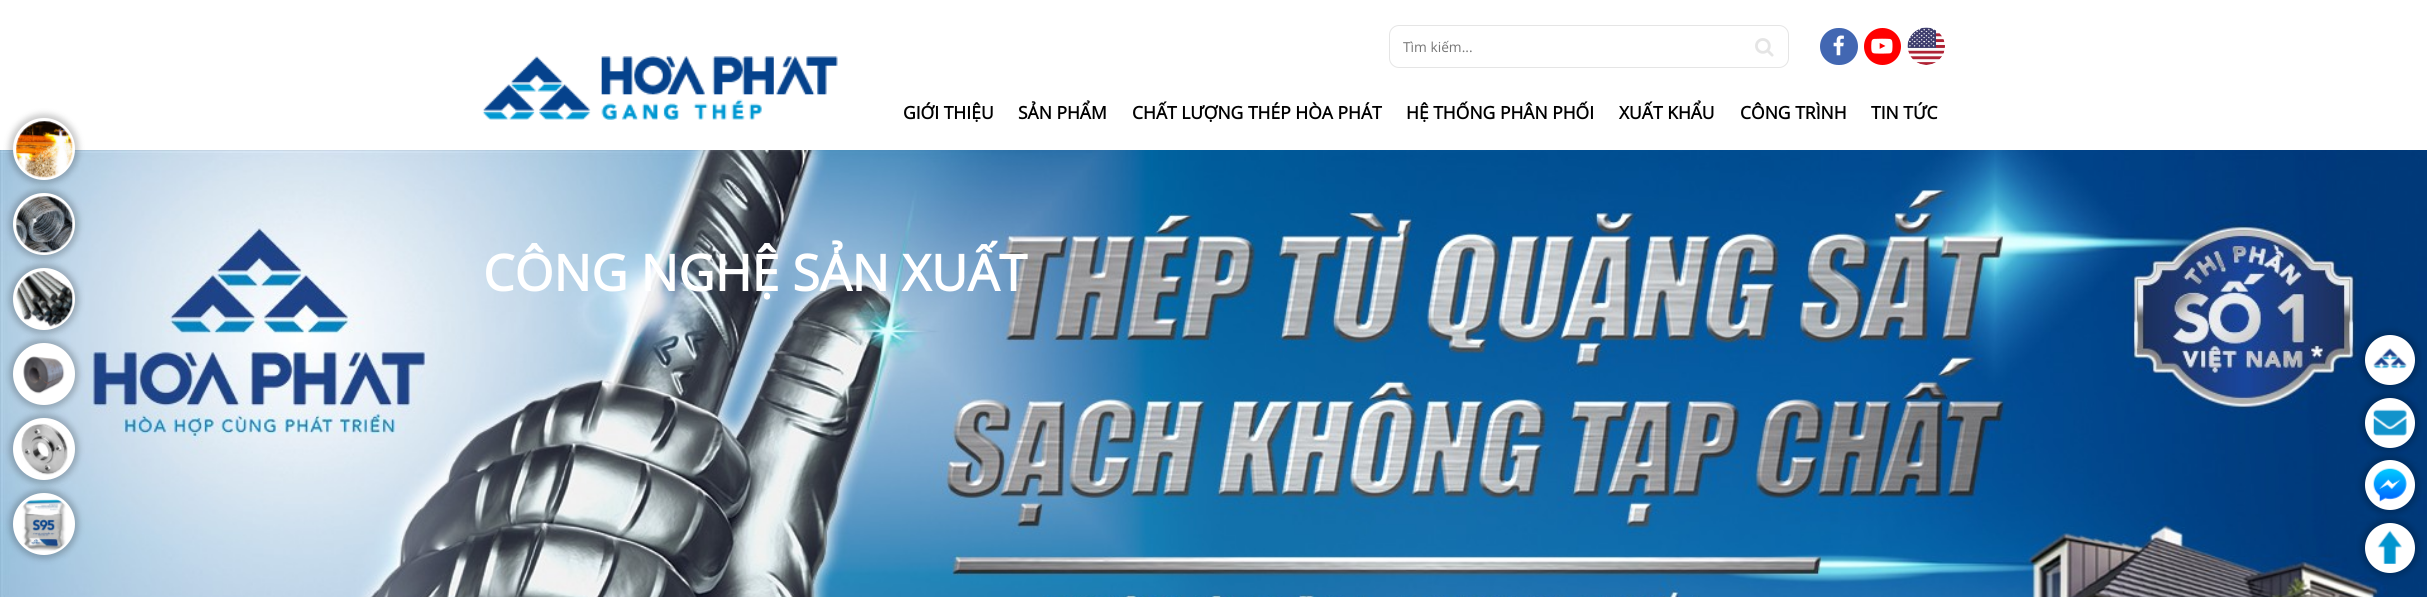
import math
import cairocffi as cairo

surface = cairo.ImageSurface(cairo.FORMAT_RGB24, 2427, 597)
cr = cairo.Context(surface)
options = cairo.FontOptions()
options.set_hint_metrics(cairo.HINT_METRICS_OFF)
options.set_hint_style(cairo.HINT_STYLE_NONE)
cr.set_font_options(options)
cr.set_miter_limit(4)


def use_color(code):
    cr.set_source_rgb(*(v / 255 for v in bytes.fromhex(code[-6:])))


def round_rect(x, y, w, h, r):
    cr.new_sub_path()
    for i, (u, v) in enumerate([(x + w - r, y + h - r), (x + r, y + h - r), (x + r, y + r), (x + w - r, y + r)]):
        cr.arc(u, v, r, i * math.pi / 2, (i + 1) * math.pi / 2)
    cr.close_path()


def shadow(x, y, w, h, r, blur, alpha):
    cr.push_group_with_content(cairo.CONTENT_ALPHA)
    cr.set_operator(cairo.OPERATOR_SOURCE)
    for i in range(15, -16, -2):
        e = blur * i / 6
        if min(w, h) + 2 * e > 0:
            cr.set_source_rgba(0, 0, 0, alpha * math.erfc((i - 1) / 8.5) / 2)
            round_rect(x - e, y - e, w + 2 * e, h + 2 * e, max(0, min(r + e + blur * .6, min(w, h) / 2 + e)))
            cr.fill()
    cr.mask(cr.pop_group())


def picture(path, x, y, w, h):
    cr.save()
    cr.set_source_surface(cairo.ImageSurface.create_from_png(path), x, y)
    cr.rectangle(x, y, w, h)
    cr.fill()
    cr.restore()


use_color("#ffffff")
cr.paint()
picture("img1.png", 482, 56, 356, 64)
round_rect(1389.5, 25.5, 399, 42, 9.5)
use_color("#e5e5e5")
cr.set_line_width(1)
cr.stroke()
cr.select_font_face("Open Sans")
cr.set_font_size(13.75)
use_color("#757575")
cr.move_to(1403, 52)
cr.show_text("Tìm kiếm...")
picture("img2.png", 1755, 38, 19, 19)
use_color("#4267b2")
round_rect(1820, 28, 38, 37, 18.5)
cr.fill()
picture("img3.png", 1833, 35, 11, 21)
use_color("#ff0000")
cr.arc(1882.5, 46.5, 18.5, 0, 2 * math.pi)
cr.fill()
picture("img4.png", 1871, 38, 22, 16)
picture("img5.png", 1907, 27, 38, 38)
cr.select_font_face("Open Sans", cairo.FONT_SLANT_NORMAL, cairo.FONT_WEIGHT_BOLD)
cr.set_font_size(17.5)
use_color("#000000")
cr.move_to(903, 119)
cr.show_text("GIỚI THIỆU")
cr.move_to(1018, 119)
cr.show_text("SẢN PHẨM")
cr.move_to(1132, 119)
cr.show_text("CHẤT LƯỢNG THÉP HÒA PHÁT")
cr.move_to(1406, 119)
cr.show_text("HỆ THỐNG PHÂN PHỐI")
cr.move_to(1619, 119)
cr.show_text("XUẤT KHẨU")
cr.move_to(1740, 119)
cr.show_text("CÔNG TRÌNH")
cr.move_to(1871, 119)
cr.show_text("TIN TỨC")
picture("img12.png", 0, 150, 2427, 447)
use_color("#000000")
shadow(9, 114, 70, 70, 35, 3, 0.2)
use_color("#ffffff")
cr.arc(44, 149, 31, 0, 2 * math.pi)
cr.fill()
picture("img6.png", 16, 121, 57, 57)
use_color("#000000")
shadow(9, 189, 70, 70, 35, 3, 0.2)
use_color("#ffffff")
cr.arc(44, 224, 31, 0, 2 * math.pi)
cr.fill()
picture("img7.png", 16, 196, 57, 57)
use_color("#000000")
shadow(9, 264, 70, 70, 35, 3, 0.2)
use_color("#ffffff")
cr.arc(44, 299, 31, 0, 2 * math.pi)
cr.fill()
picture("img8.png", 16, 271, 57, 56)
use_color("#000000")
shadow(9, 339, 70, 70, 35, 3, 0.2)
use_color("#ffffff")
cr.arc(44, 374, 31, 0, 2 * math.pi)
cr.fill()
picture("img9.png", 23, 356, 42, 38)
use_color("#000000")
shadow(9, 414, 70, 70, 35, 3, 0.2)
use_color("#ffffff")
cr.arc(44, 449, 31, 0, 2 * math.pi)
cr.fill()
picture("img10.png", 21, 423, 47, 52)
use_color("#000000")
shadow(9, 489, 70, 70, 35, 3, 0.2)
use_color("#ffffff")
cr.arc(44, 524, 31, 0, 2 * math.pi)
cr.fill()
picture("img11.png", 22, 499, 44, 52)
cr.set_font_size(50)
cr.move_to(483, 291)
cr.show_text("CÔNG NGHỆ SẢN XUẤT")
use_color("#000000")
shadow(2361, 331, 58, 58, 29, 3, 0.2)
use_color("#ffffff")
cr.arc(2390, 360, 25, 0, 2 * math.pi)
cr.fill()
picture("img13.png", 2373, 348, 34, 21)
use_color("#000000")
shadow(2361, 394, 58, 57, 28.5, 3, 0.2)
use_color("#ffffff")
cr.arc(2390, 423, 25, 0, 2 * math.pi)
cr.fill()
picture("img14.png", 2373, 409, 34, 27)
use_color("#000000")
shadow(2361, 456, 58, 58, 29, 3, 0.2)
use_color("#ffffff")
cr.arc(2390, 485, 25, 0, 2 * math.pi)
cr.fill()
picture("img15.png", 2373, 468, 34, 34)
use_color("#000000")
shadow(2361, 519, 58, 57, 28.5, 3, 0.2)
use_color("#ffffff")
cr.arc(2390, 548, 25, 0, 2 * math.pi)
cr.fill()
picture("img16.png", 2377, 530, 25, 34)
surface.write_to_png("result.png")
